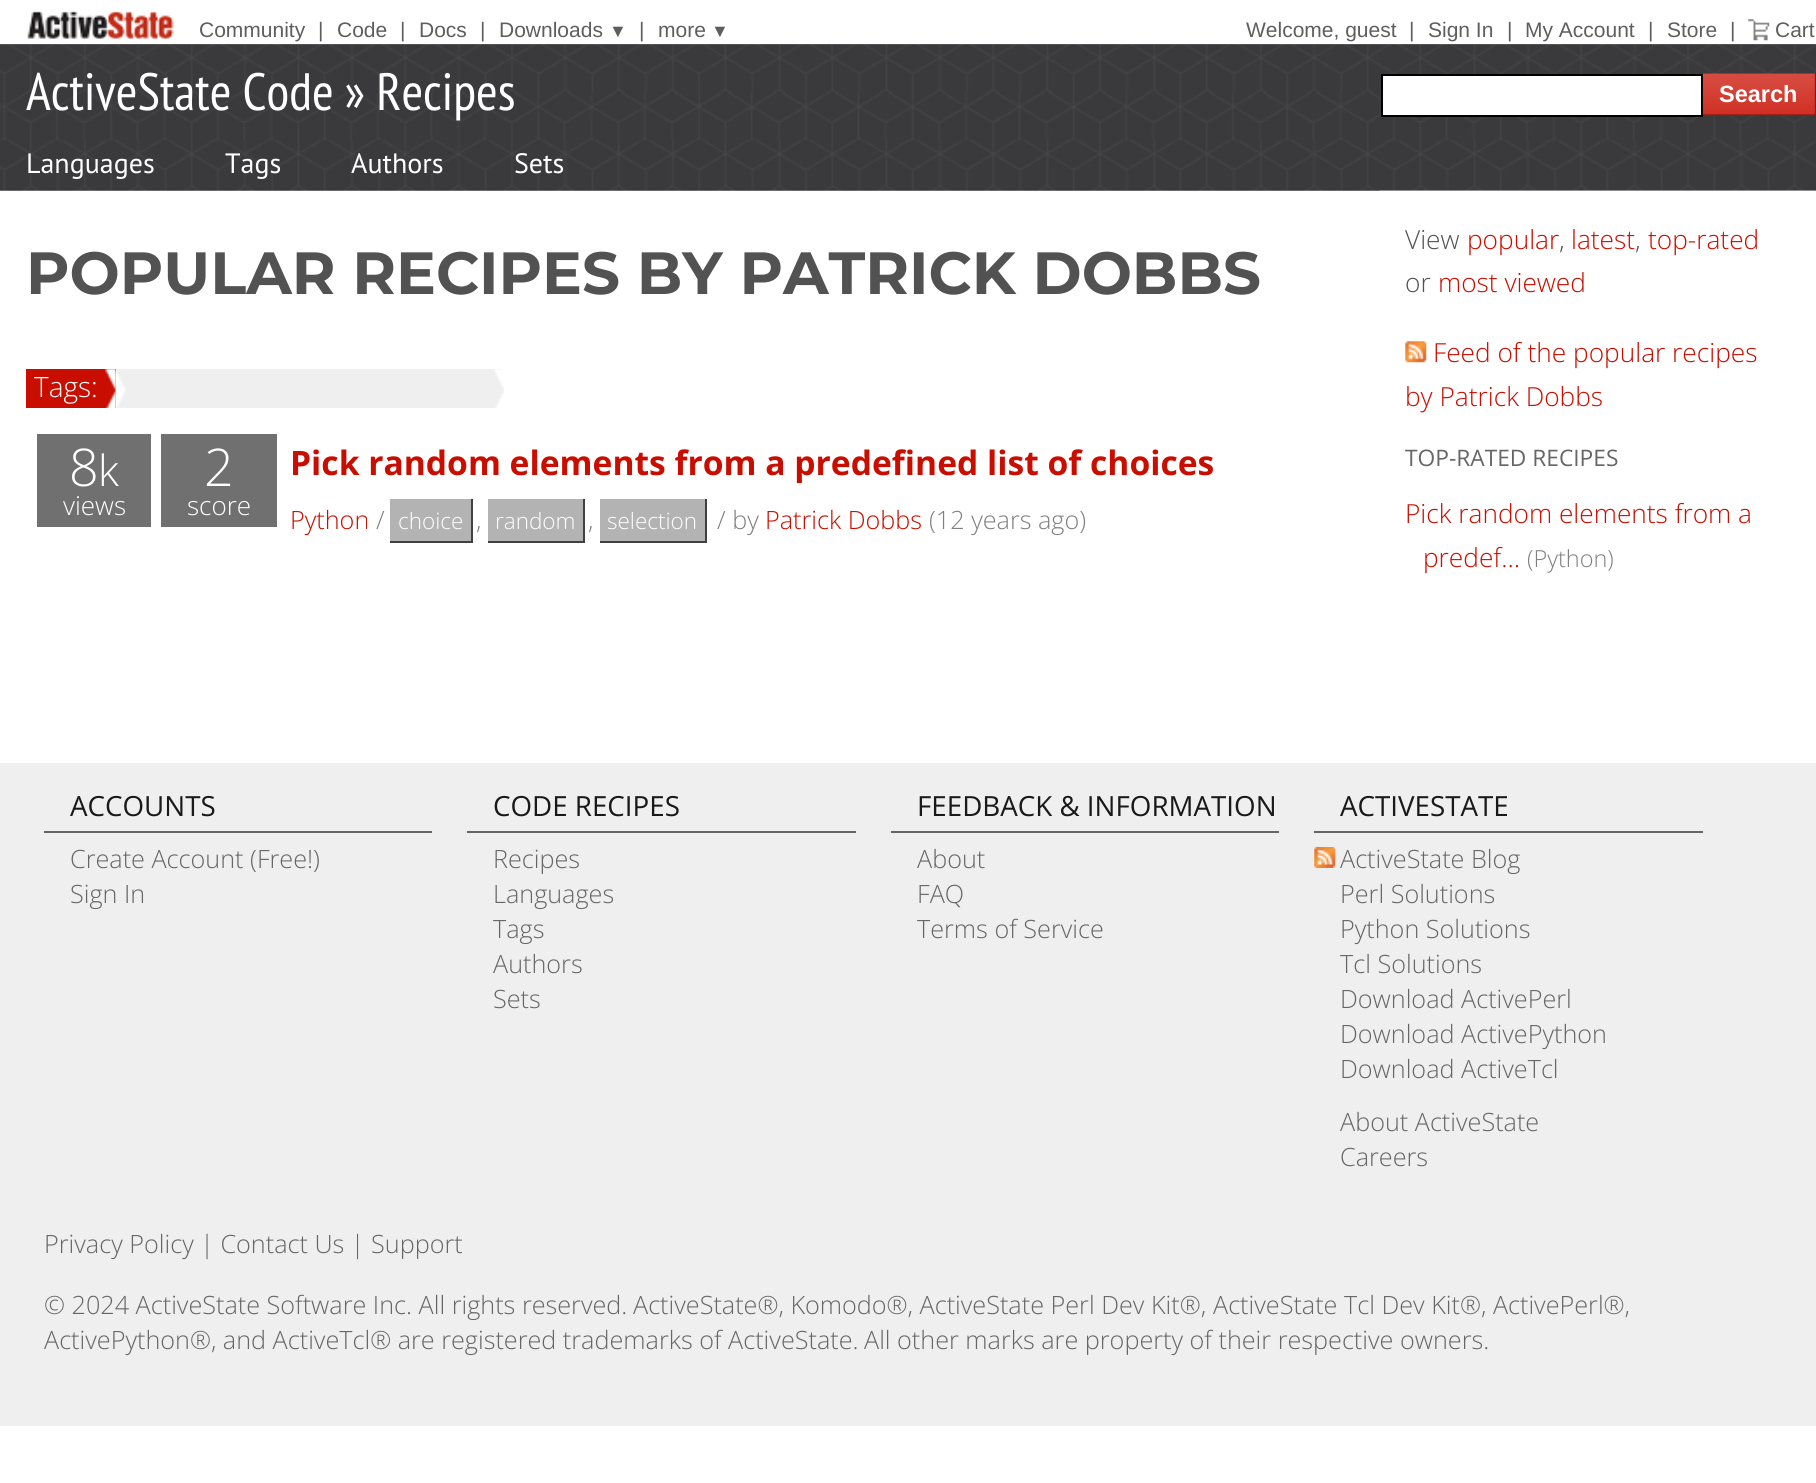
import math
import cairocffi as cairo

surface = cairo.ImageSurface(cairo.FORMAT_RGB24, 1816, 1483)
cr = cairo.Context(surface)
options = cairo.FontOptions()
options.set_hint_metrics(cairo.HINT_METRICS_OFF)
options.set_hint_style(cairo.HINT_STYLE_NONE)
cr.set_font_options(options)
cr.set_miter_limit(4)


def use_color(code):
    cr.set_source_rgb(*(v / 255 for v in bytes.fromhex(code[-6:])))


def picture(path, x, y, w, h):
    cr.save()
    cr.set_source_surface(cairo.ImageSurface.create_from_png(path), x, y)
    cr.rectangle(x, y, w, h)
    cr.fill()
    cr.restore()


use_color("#ffffff")
cr.paint()
picture("img1.png", 0, 44, 1816, 147)
picture("img2.png", 27, 10, 147, 29)
cr.select_font_face("Liberation Sans")
cr.set_font_size(21)
use_color("#5e5e5e")
cr.move_to(199, 37)
cr.show_text("Community")
cr.move_to(318, 37)
cr.show_text("|")
cr.move_to(337, 37)
cr.show_text("Code")
cr.move_to(400, 37)
cr.show_text("|")
cr.move_to(419, 37)
cr.show_text("Docs")
cr.move_to(480, 37)
cr.show_text("|")
cr.move_to(499, 37)
cr.show_text("Downloads")
cr.set_font_size(18)
cr.move_to(609, 37)
cr.show_text("▼")
cr.set_font_size(21)
cr.move_to(639, 37)
cr.show_text("|")
cr.move_to(658, 37)
cr.show_text("more")
cr.set_font_size(18)
cr.move_to(711, 37)
cr.show_text("▼")
cr.set_font_size(21)
cr.move_to(1246, 37)
cr.show_text("Welcome, guest")
cr.move_to(1409, 37)
cr.show_text("|")
cr.move_to(1428, 37)
cr.show_text("Sign In")
cr.move_to(1507, 37)
cr.show_text("|")
cr.move_to(1525, 37)
cr.show_text("My Account")
cr.move_to(1648, 37)
cr.show_text("|")
cr.move_to(1667, 37)
cr.show_text("Store")
cr.move_to(1730, 37)
cr.show_text("|")
picture("img3.png", 1748, 19, 22, 22)
cr.move_to(1775, 37)
cr.show_text("Cart")
cr.select_font_face("PT Sans Narrow")
cr.set_font_size(52.5)
use_color("#ffffff")
cr.move_to(26, 110)
cr.show_text("ActiveState Code » Recipes")
cr.rectangle(1382, 75, 320, 41)
cr.fill_preserve()
use_color("#000000")
cr.stroke()
use_color("#c90e00")
cr.rectangle(1703, 74, 112, 42)
cr.fill()
picture("img4.png", 1702, 73, 113, 43)
cr.set_source_rgba(0, 0, 0, 0.25)
cr.rectangle(1703, 114, 112, 2)
cr.fill()
cr.select_font_face("Liberation Sans", cairo.FONT_SLANT_NORMAL, cairo.FONT_WEIGHT_BOLD)
cr.set_font_size(23.5)
use_color("#ffffff")
cr.move_to(1719, 102)
cr.show_text("Search")
cr.select_font_face("PT Sans")
cr.set_font_size(28)
cr.move_to(26, 173)
cr.show_text("Languages")
cr.move_to(225, 173)
cr.show_text("Tags")
cr.move_to(351, 173)
cr.show_text("Authors")
cr.move_to(514, 173)
cr.show_text("Sets")
picture("img5.png", 1379, 190, 437, 1)
cr.select_font_face("Montserrat", cairo.FONT_SLANT_NORMAL, cairo.FONT_WEIGHT_BOLD)
cr.set_font_size(59.5)
use_color("#525252")
cr.move_to(26, 294)
cr.show_text("POPULAR RECIPES BY PATRICK DOBBS")
use_color("#c90e00")
cr.rectangle(26, 369, 90, 39)
cr.fill()
cr.select_font_face("Open Sans Light")
cr.set_font_size(28)
use_color("#ffffff")
cr.move_to(34, 397)
cr.show_text("Tags:")
picture("img6.png", 105, 369, 11, 39)
use_color("#efefef")
cr.rectangle(116, 369, 388, 39)
cr.fill()
picture("img7.png", 115, 369, 11, 39)
picture("img8.png", 494, 369, 10, 39)
use_color("#707070")
cr.rectangle(37, 434, 114, 93)
cr.fill()
cr.set_font_size(52)
use_color("#ffffff")
cr.move_to(69, 486)
cr.show_text("8")
cr.set_font_size(43)
cr.move_to(98, 486)
cr.show_text("k")
cr.set_font_size(26)
cr.move_to(63, 515)
cr.show_text("views")
use_color("#707070")
cr.rectangle(161, 434, 116, 93)
cr.fill()
cr.set_font_size(52)
use_color("#ffffff")
cr.move_to(204, 486)
cr.show_text("2")
cr.set_font_size(26)
cr.move_to(187, 515)
cr.show_text("score")
cr.select_font_face("Open Sans", cairo.FONT_SLANT_NORMAL, cairo.FONT_WEIGHT_BOLD)
cr.set_font_size(33.6)
use_color("#c90e00")
cr.move_to(290, 475)
cr.show_text("Pick random elements from a predefined list of choices")
cr.select_font_face("Open Sans Light")
cr.set_font_size(25.2)
cr.move_to(290, 529)
cr.show_text("Python")
use_color("#808080")
cr.move_to(376, 529)
cr.show_text("/")
use_color("#b3b3b3")
cr.rectangle(390, 499, 81, 42)
cr.fill()
cr.set_font_size(22.5)
use_color("#ffffff")
cr.move_to(398, 529)
cr.show_text("choice")
use_color("#404041")
cr.rectangle(471, 499, 2, 44)
cr.fill()
cr.rectangle(390, 541, 83, 2)
cr.fill()
cr.set_font_size(25.2)
use_color("#808080")
cr.move_to(476, 529)
cr.show_text(",")
use_color("#b3b3b3")
cr.rectangle(488, 499, 95, 42)
cr.fill()
cr.set_font_size(22.5)
use_color("#ffffff")
cr.move_to(495, 529)
cr.show_text("random")
use_color("#404041")
cr.rectangle(583, 499, 2, 44)
cr.fill()
cr.rectangle(488, 541, 97, 2)
cr.fill()
cr.set_font_size(25.2)
use_color("#808080")
cr.move_to(588, 529)
cr.show_text(",")
use_color("#b3b3b3")
cr.rectangle(600, 499, 105, 42)
cr.fill()
cr.set_font_size(22.5)
use_color("#ffffff")
cr.move_to(607, 529)
cr.show_text("selection")
use_color("#404041")
cr.rectangle(705, 499, 2, 44)
cr.fill()
cr.rectangle(600, 541, 107, 2)
cr.fill()
cr.set_font_size(25.2)
use_color("#808080")
cr.move_to(717, 529)
cr.show_text("/ by")
use_color("#c90e00")
cr.move_to(765, 529)
cr.show_text("Patrick Dobbs")
use_color("#808080")
cr.move_to(929, 529)
cr.show_text("(12 years ago)")
cr.set_font_size(26.25)
use_color("#525252")
cr.move_to(1405, 249)
cr.show_text("View")
use_color("#c90e00")
cr.move_to(1467, 249)
cr.show_text("popular")
use_color("#525252")
cr.move_to(1559, 249)
cr.show_text(",")
use_color("#c90e00")
cr.move_to(1571, 249)
cr.show_text("latest")
use_color("#525252")
cr.move_to(1635, 249)
cr.show_text(",")
use_color("#c90e00")
cr.move_to(1648, 249)
cr.show_text("top-rated")
use_color("#525252")
cr.move_to(1405, 292)
cr.show_text("or")
use_color("#c90e00")
cr.move_to(1438, 292)
cr.show_text("most viewed")
picture("img9.png", 1405, 341, 22, 22)
cr.move_to(1433, 362)
cr.show_text("Feed of the popular recipes")
cr.move_to(1405, 406)
cr.show_text("by Patrick Dobbs")
cr.select_font_face("Open Sans")
cr.set_font_size(22.75)
use_color("#666666")
cr.move_to(1405, 466)
cr.show_text("TOP-RATED RECIPES")
cr.select_font_face("Open Sans Light")
cr.set_font_size(26.25)
use_color("#c90e00")
cr.move_to(1405, 523)
cr.show_text("Pick random elements from a")
cr.move_to(1423, 567)
cr.show_text("predef…")
cr.set_font_size(23.5)
use_color("#808080")
cr.move_to(1527, 567)
cr.show_text("(Python)")
use_color("#efefef")
cr.rectangle(0, 763, 1816, 663)
cr.fill()
use_color("#666666")
cr.rectangle(44, 831, 388, 2)
cr.fill()
cr.select_font_face("Open Sans")
cr.set_font_size(27.75)
use_color("#191919")
cr.move_to(70, 816)
cr.show_text("ACCOUNTS")
cr.select_font_face("Open Sans Light")
cr.set_font_size(25.2)
use_color("#666666")
cr.move_to(70, 868)
cr.show_text("Create Account (Free!)")
cr.move_to(70, 903)
cr.show_text("Sign In")
cr.rectangle(467, 831, 389, 2)
cr.fill()
cr.select_font_face("Open Sans")
cr.set_font_size(27.75)
use_color("#191919")
cr.move_to(493, 816)
cr.show_text("CODE RECIPES")
cr.select_font_face("Open Sans Light")
cr.set_font_size(25.2)
use_color("#666666")
cr.move_to(493, 868)
cr.show_text("Recipes")
cr.move_to(493, 903)
cr.show_text("Languages")
cr.move_to(493, 938)
cr.show_text("Tags")
cr.move_to(493, 973)
cr.show_text("Authors")
cr.move_to(493, 1008)
cr.show_text("Sets")
cr.rectangle(891, 831, 388, 2)
cr.fill()
cr.select_font_face("Open Sans")
cr.set_font_size(27.75)
use_color("#191919")
cr.move_to(917, 816)
cr.show_text("FEEDBACK & INFORMATION")
cr.select_font_face("Open Sans Light")
cr.set_font_size(25.2)
use_color("#666666")
cr.move_to(917, 868)
cr.show_text("About")
cr.move_to(917, 903)
cr.show_text("FAQ")
cr.move_to(917, 938)
cr.show_text("Terms of Service")
cr.rectangle(1314, 831, 389, 2)
cr.fill()
cr.select_font_face("Open Sans")
cr.set_font_size(27.75)
use_color("#191919")
cr.move_to(1340, 816)
cr.show_text("ACTIVESTATE")
picture("img10.png", 1314, 847, 22, 21)
cr.select_font_face("Open Sans Light")
cr.set_font_size(25.2)
use_color("#666666")
cr.move_to(1340, 868)
cr.show_text("ActiveState Blog")
cr.move_to(1340, 903)
cr.show_text("Perl Solutions")
cr.move_to(1340, 938)
cr.show_text("Python Solutions")
cr.move_to(1340, 973)
cr.show_text("Tcl Solutions")
cr.move_to(1340, 1008)
cr.show_text("Download ActivePerl")
cr.move_to(1340, 1043)
cr.show_text("Download ActivePython")
cr.move_to(1340, 1078)
cr.show_text("Download ActiveTcl")
cr.move_to(1340, 1131)
cr.show_text("About ActiveState")
cr.move_to(1340, 1166)
cr.show_text("Careers")
cr.move_to(44, 1253)
cr.show_text("Privacy Policy | Contact Us | Support")
cr.move_to(44, 1314)
cr.show_text("© 2024 ActiveState Software Inc. All rights reserved.")
cr.move_to(633, 1314)
cr.show_text("ActiveState®, Komodo®, ActiveState Perl Dev Kit®,")
cr.move_to(1213, 1314)
cr.show_text("ActiveState Tcl Dev Kit®, ActivePerl®,")
cr.move_to(44, 1349)
cr.show_text("ActivePython®, and ActiveTcl® are registered trademarks of ActiveState.")
cr.move_to(864, 1349)
cr.show_text("All other marks are property of their respective owners.")
surface.write_to_png("result.png")
